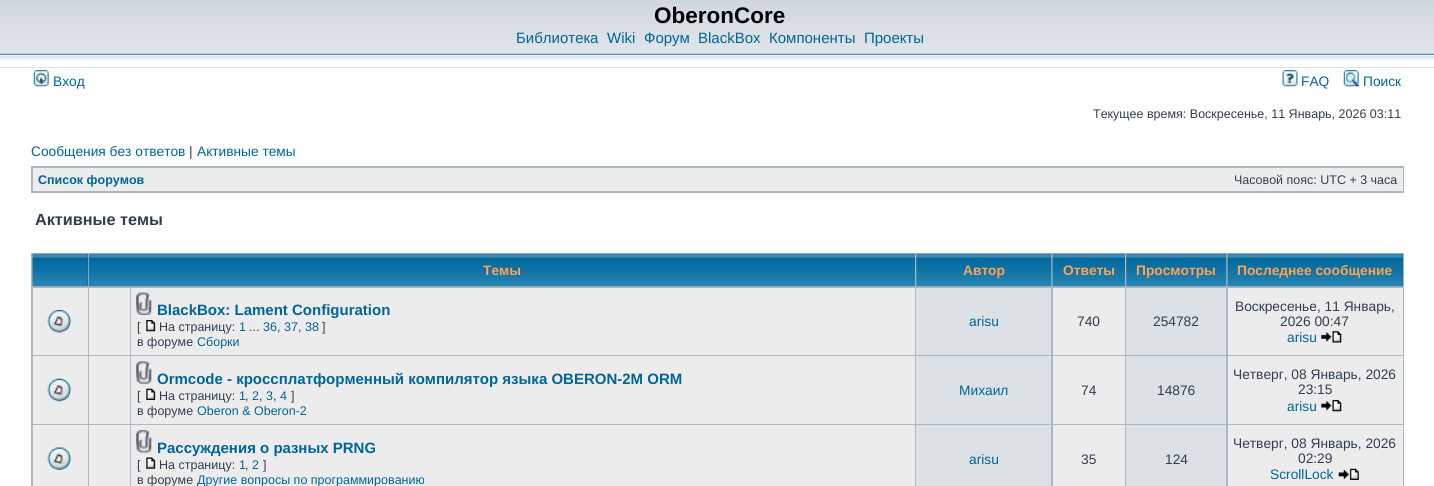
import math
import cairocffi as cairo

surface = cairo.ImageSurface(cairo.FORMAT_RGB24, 1434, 486)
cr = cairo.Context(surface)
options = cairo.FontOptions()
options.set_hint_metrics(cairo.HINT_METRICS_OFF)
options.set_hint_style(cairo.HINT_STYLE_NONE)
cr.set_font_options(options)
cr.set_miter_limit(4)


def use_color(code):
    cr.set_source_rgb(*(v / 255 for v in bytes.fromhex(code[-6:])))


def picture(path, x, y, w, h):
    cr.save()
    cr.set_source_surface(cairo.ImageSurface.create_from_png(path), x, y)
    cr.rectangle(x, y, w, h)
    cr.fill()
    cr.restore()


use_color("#ffffff")
cr.paint()
use_color("#c1cad2")
cr.rectangle(0, 67, 1434, 1)
cr.fill()
picture("img1.png", 0, 0, 1434, 68)
cr.select_font_face("Liberation Sans", cairo.FONT_SLANT_NORMAL, cairo.FONT_WEIGHT_BOLD)
cr.set_font_size(22.5)
use_color("#000000")
cr.move_to(654, 23)
cr.show_text("OberonCore")
cr.select_font_face("Liberation Sans")
cr.set_font_size(15)
use_color("#006597")
cr.move_to(516, 43)
cr.show_text("Библиотека")
cr.move_to(607, 43)
cr.show_text("Wiki")
cr.move_to(644, 43)
cr.show_text("Форум")
cr.move_to(698, 43)
cr.show_text("BlackBox")
cr.move_to(769, 43)
cr.show_text("Компоненты")
cr.move_to(864, 43)
cr.show_text("Проекты")
picture("img2.png", 33, 70, 16, 17)
cr.set_font_size(13.75)
cr.move_to(53, 86)
cr.show_text("Вход")
picture("img3.png", 1282, 70, 16, 17)
cr.move_to(1301, 86)
cr.show_text("FAQ")
picture("img4.png", 1343, 70, 16, 17)
cr.move_to(1363, 86)
cr.show_text("Поиск")
cr.set_font_size(12.5)
use_color("#323d4f")
cr.move_to(1093, 118)
cr.show_text("Текущее время: Воскресенье, 11 Январь, 2026 03:11")
cr.set_font_size(13.75)
use_color("#006597")
cr.move_to(31, 156)
cr.show_text("Сообщения без ответов")
use_color("#323d4f")
cr.move_to(189, 156)
cr.show_text("|")
use_color("#006597")
cr.move_to(197, 156)
cr.show_text("Активные темы")
use_color("#a9b8c2")
cr.rectangle(31, 166, 1373, 27)
cr.fill()
use_color("#ececec")
cr.rectangle(33, 168, 1370, 23)
cr.fill()
cr.select_font_face("Liberation Sans", cairo.FONT_SLANT_NORMAL, cairo.FONT_WEIGHT_BOLD)
cr.set_font_size(12.5)
use_color("#006597")
cr.move_to(38, 184)
cr.show_text("Список форумов")
cr.select_font_face("Liberation Sans")
use_color("#323d4f")
cr.move_to(1234, 184)
cr.show_text("Часовой пояс: UTC + 3 часа")
cr.select_font_face("Liberation Sans", cairo.FONT_SLANT_NORMAL, cairo.FONT_WEIGHT_BOLD)
cr.set_font_size(16.25)
cr.move_to(35, 225)
cr.show_text("Активные темы")
use_color("#a9b8c2")
cr.rectangle(31, 253, 1373, 233)
cr.fill()
use_color("#006699")
cr.rectangle(87, 254, 1, 32)
cr.fill()
picture("img5.png", 32, 253, 56, 34)
picture("img6.png", 88, 253, 827, 34)
cr.set_font_size(13.75)
use_color("#ffa34f")
cr.move_to(483, 275)
cr.show_text("Темы")
picture("img7.png", 916, 253, 136, 34)
cr.move_to(963, 275)
cr.show_text("Автор")
picture("img8.png", 1052, 253, 73, 34)
cr.move_to(1063, 275)
cr.show_text("Ответы")
picture("img9.png", 1126, 253, 101, 34)
cr.move_to(1136, 275)
cr.show_text("Просмотры")
use_color("#006699")
cr.rectangle(1402, 254, 1, 32)
cr.fill()
picture("img10.png", 1227, 253, 176, 34)
use_color("#ffa34f")
cr.move_to(1237, 275)
cr.show_text("Последнее сообщение")
use_color("#ececec")
cr.rectangle(33, 288, 55, 67)
cr.fill()
picture("img11.png", 47, 310, 25, 23)
cr.rectangle(89, 288, 41, 67)
cr.fill()
cr.rectangle(131, 288, 784, 67)
cr.fill()
picture("img12.png", 136, 292, 16, 23)
cr.set_font_size(15)
use_color("#006597")
cr.move_to(157, 315)
cr.show_text("BlackBox: Lament Configuration")
cr.select_font_face("Liberation Sans")
cr.set_font_size(12.5)
use_color("#323d4f")
cr.move_to(137, 331)
cr.show_text("[")
picture("img13.png", 146, 320, 10, 12)
cr.move_to(159, 331)
cr.show_text("На страницу:")
use_color("#006597")
cr.move_to(239, 331)
cr.show_text("1")
use_color("#323d4f")
cr.move_to(249, 331)
cr.show_text("...")
use_color("#006597")
cr.move_to(263, 331)
cr.show_text("36")
use_color("#323d4f")
cr.move_to(277, 331)
cr.show_text(",")
use_color("#006597")
cr.move_to(284, 331)
cr.show_text("37")
use_color("#323d4f")
cr.move_to(298, 331)
cr.show_text(",")
use_color("#006597")
cr.move_to(305, 331)
cr.show_text("38")
use_color("#323d4f")
cr.move_to(322, 331)
cr.show_text("]")
cr.move_to(137, 346)
cr.show_text("в форуме")
use_color("#006597")
cr.move_to(197, 346)
cr.show_text("Сборки")
use_color("#dce1e5")
cr.rectangle(916, 288, 135, 67)
cr.fill()
cr.set_font_size(13.75)
use_color("#006597")
cr.move_to(969, 326)
cr.show_text("arisu")
use_color("#ececec")
cr.rectangle(1053, 288, 72, 67)
cr.fill()
use_color("#323d4f")
cr.move_to(1077, 326)
cr.show_text("740")
use_color("#dce1e5")
cr.rectangle(1126, 288, 100, 67)
cr.fill()
use_color("#323d4f")
cr.move_to(1153, 326)
cr.show_text("254782")
use_color("#ececec")
cr.rectangle(1228, 288, 175, 67)
cr.fill()
use_color("#323d4f")
cr.move_to(1235, 311)
cr.show_text("Воскресенье, 11 Январь,")
cr.move_to(1280, 326)
cr.show_text("2026 00:47")
use_color("#006597")
cr.move_to(1287, 342)
cr.show_text("arisu")
picture("img14.png", 1321, 331, 21, 12)
use_color("#ececec")
cr.rectangle(33, 356, 55, 68)
cr.fill()
picture("img15.png", 47, 378, 25, 24)
cr.rectangle(89, 356, 41, 68)
cr.fill()
cr.rectangle(131, 356, 784, 68)
cr.fill()
picture("img16.png", 136, 361, 16, 23)
cr.select_font_face("Liberation Sans", cairo.FONT_SLANT_NORMAL, cairo.FONT_WEIGHT_BOLD)
cr.set_font_size(15)
use_color("#006597")
cr.move_to(157, 384)
cr.show_text("Ormcode - кроссплатформенный компилятор языка OBERON-2M ORM")
cr.select_font_face("Liberation Sans")
cr.set_font_size(12.5)
use_color("#323d4f")
cr.move_to(137, 400)
cr.show_text("[")
picture("img17.png", 146, 388, 10, 12)
cr.move_to(159, 400)
cr.show_text("На страницу:")
use_color("#006597")
cr.move_to(239, 400)
cr.show_text("1")
use_color("#323d4f")
cr.move_to(245, 400)
cr.show_text(",")
use_color("#006597")
cr.move_to(252, 400)
cr.show_text("2")
use_color("#323d4f")
cr.move_to(259, 400)
cr.show_text(",")
use_color("#006597")
cr.move_to(266, 400)
cr.show_text("3")
use_color("#323d4f")
cr.move_to(273, 400)
cr.show_text(",")
use_color("#006597")
cr.move_to(280, 400)
cr.show_text("4")
use_color("#323d4f")
cr.move_to(291, 400)
cr.show_text("]")
cr.move_to(137, 415)
cr.show_text("в форуме")
use_color("#006597")
cr.move_to(197, 415)
cr.show_text("Oberon & Oberon-2")
use_color("#dce1e5")
cr.rectangle(916, 356, 135, 68)
cr.fill()
cr.set_font_size(13.75)
use_color("#006597")
cr.move_to(959, 395)
cr.show_text("Михаил")
use_color("#ececec")
cr.rectangle(1053, 356, 72, 68)
cr.fill()
use_color("#323d4f")
cr.move_to(1081, 395)
cr.show_text("74")
use_color("#dce1e5")
cr.rectangle(1126, 356, 100, 68)
cr.fill()
use_color("#323d4f")
cr.move_to(1157, 395)
cr.show_text("14876")
use_color("#ececec")
cr.rectangle(1228, 356, 175, 68)
cr.fill()
use_color("#323d4f")
cr.move_to(1233, 379)
cr.show_text("Четверг, 08 Январь, 2026")
cr.move_to(1298, 394)
cr.show_text("23:15")
use_color("#006597")
cr.move_to(1287, 411)
cr.show_text("arisu")
picture("img18.png", 1321, 400, 21, 12)
use_color("#ececec")
cr.rectangle(33, 425, 55, 61)
cr.fill()
picture("img19.png", 47, 447, 25, 23)
cr.rectangle(89, 425, 41, 61)
cr.fill()
cr.rectangle(131, 425, 784, 61)
cr.fill()
picture("img20.png", 136, 430, 16, 23)
cr.select_font_face("Liberation Sans", cairo.FONT_SLANT_NORMAL, cairo.FONT_WEIGHT_BOLD)
cr.set_font_size(15)
use_color("#006597")
cr.move_to(157, 453)
cr.show_text("Рассуждения о разных PRNG")
cr.select_font_face("Liberation Sans")
cr.set_font_size(12.5)
use_color("#323d4f")
cr.move_to(137, 469)
cr.show_text("[")
picture("img21.png", 146, 457, 10, 12)
cr.move_to(159, 469)
cr.show_text("На страницу:")
use_color("#006597")
cr.move_to(239, 469)
cr.show_text("1")
use_color("#323d4f")
cr.move_to(245, 469)
cr.show_text(",")
use_color("#006597")
cr.move_to(252, 469)
cr.show_text("2")
use_color("#323d4f")
cr.move_to(263, 469)
cr.show_text("]")
cr.move_to(137, 484)
cr.show_text("в форуме")
use_color("#006597")
cr.move_to(197, 484)
cr.show_text("Другие вопросы по программированию")
use_color("#dce1e5")
cr.rectangle(916, 425, 135, 61)
cr.fill()
cr.set_font_size(13.75)
use_color("#006597")
cr.move_to(969, 464)
cr.show_text("arisu")
use_color("#ececec")
cr.rectangle(1053, 425, 72, 61)
cr.fill()
use_color("#323d4f")
cr.move_to(1081, 464)
cr.show_text("35")
use_color("#dce1e5")
cr.rectangle(1126, 425, 100, 61)
cr.fill()
use_color("#323d4f")
cr.move_to(1165, 464)
cr.show_text("124")
use_color("#ececec")
cr.rectangle(1228, 425, 175, 61)
cr.fill()
use_color("#323d4f")
cr.move_to(1233, 448)
cr.show_text("Четверг, 08 Январь, 2026")
cr.move_to(1298, 463)
cr.show_text("02:29")
use_color("#006597")
cr.move_to(1270, 479)
cr.show_text("ScrollLock")
picture("img22.png", 1338, 468, 21, 12)
surface.write_to_png("result.png")
